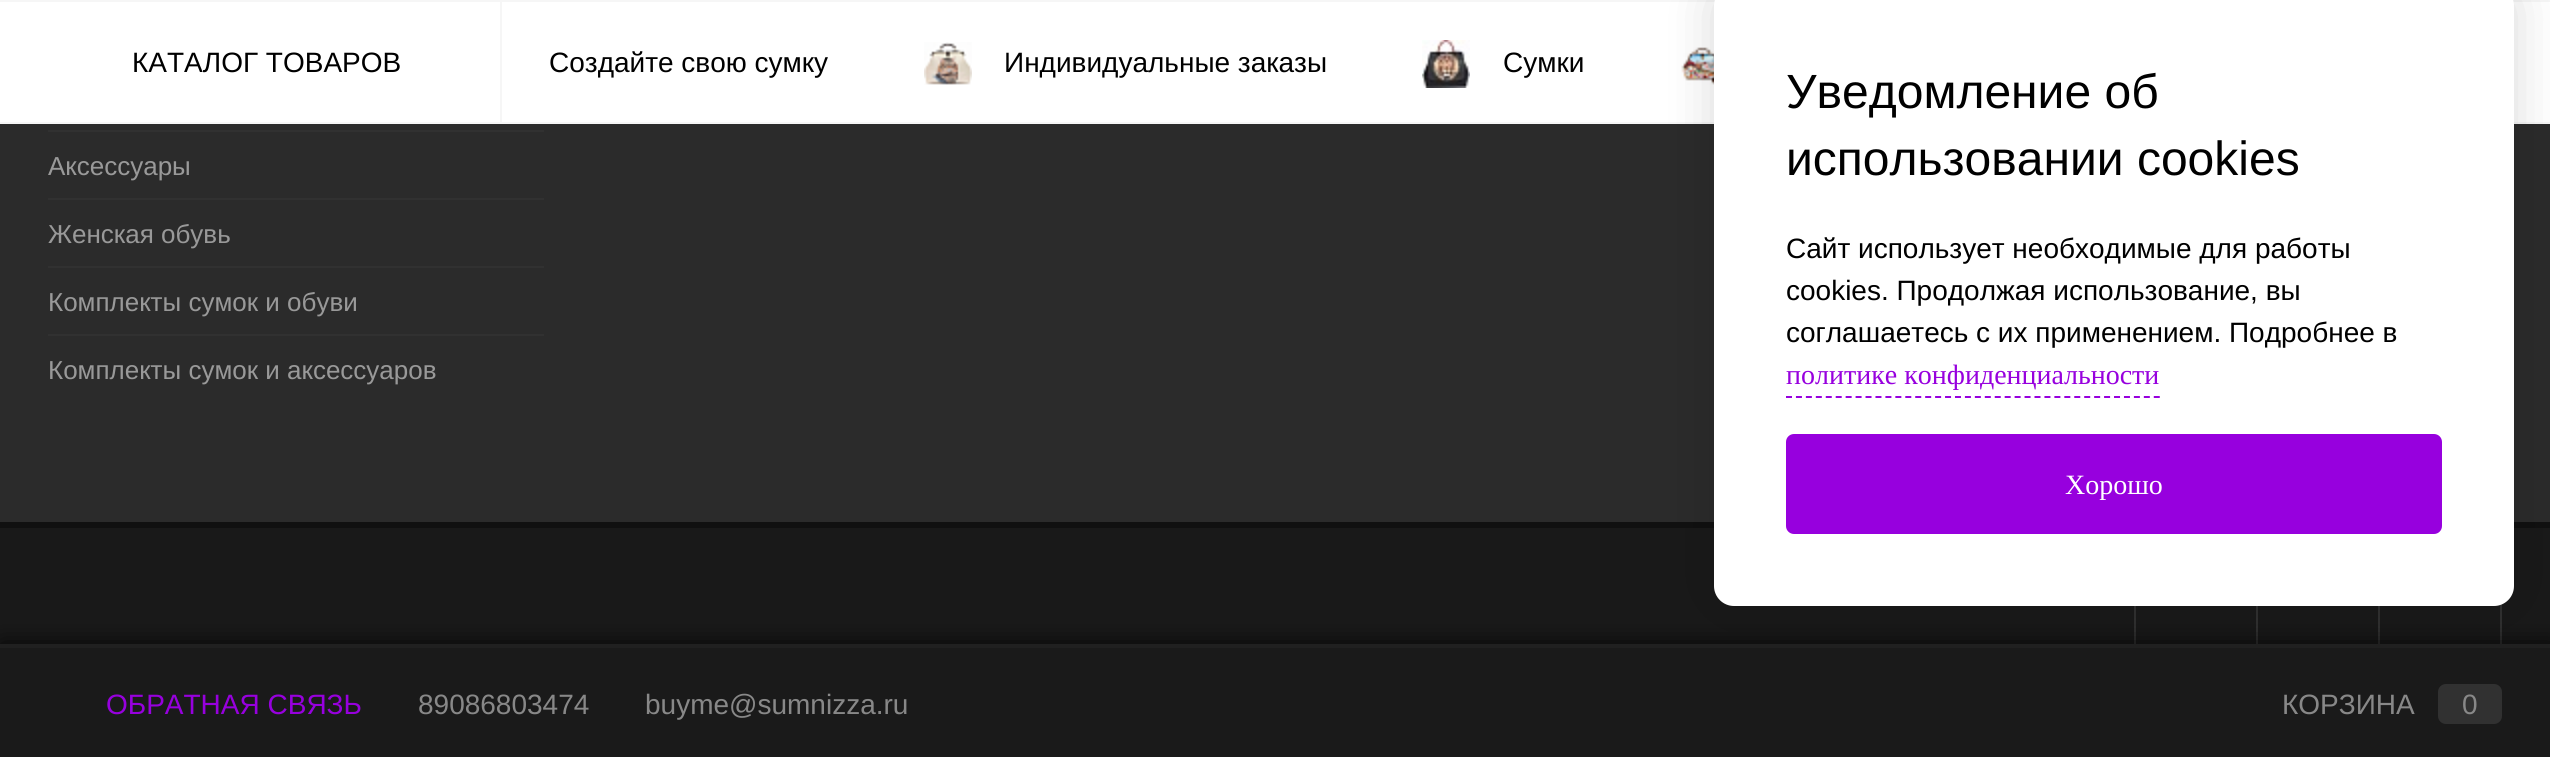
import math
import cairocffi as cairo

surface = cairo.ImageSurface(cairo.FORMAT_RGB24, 2550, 757)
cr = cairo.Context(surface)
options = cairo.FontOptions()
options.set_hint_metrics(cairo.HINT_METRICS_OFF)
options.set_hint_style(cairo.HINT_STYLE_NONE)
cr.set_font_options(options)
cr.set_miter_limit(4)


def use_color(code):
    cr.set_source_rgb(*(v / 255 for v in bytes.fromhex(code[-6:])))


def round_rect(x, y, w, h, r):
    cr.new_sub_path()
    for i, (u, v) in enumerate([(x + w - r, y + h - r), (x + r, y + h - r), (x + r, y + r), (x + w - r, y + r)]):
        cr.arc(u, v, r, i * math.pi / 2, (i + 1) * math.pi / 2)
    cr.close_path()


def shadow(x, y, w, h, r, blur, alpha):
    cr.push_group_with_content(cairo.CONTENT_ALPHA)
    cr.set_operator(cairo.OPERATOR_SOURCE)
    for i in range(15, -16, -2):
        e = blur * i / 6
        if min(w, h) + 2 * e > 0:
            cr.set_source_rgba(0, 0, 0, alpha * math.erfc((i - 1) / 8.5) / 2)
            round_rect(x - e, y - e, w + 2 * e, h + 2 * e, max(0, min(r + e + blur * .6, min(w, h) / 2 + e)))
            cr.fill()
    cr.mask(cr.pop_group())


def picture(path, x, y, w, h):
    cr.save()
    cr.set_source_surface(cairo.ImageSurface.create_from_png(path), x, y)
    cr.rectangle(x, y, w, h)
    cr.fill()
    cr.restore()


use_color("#2b2b2b")
cr.paint()
use_color("#ffffff")
cr.rectangle(0, 2, 2550, 120)
cr.fill()
use_color("#f6f6f6")
cr.rectangle(0, 0, 2550, 2)
cr.fill()
cr.rectangle(0, 122, 2550, 2)
cr.fill()
cr.select_font_face("Liberation Sans")
cr.set_font_size(28)
use_color("#000000")
cr.move_to(132, 72)
cr.show_text("КАТАЛОГ ТОВАРОВ")
use_color("#f6f6f6")
cr.rectangle(500, 2, 2, 120)
cr.fill()
use_color("#000000")
cr.move_to(549, 72)
cr.show_text("Создайте свою сумку")
picture("img1.png", 924, 42, 48, 43)
cr.move_to(1004, 72)
cr.show_text("Индивидуальные заказы")
picture("img2.png", 1422, 40, 48, 48)
cr.move_to(1503, 72)
cr.show_text("Сумки")
picture("img3.png", 1681, 47, 33, 38)
use_color("#313131")
cr.rectangle(48, 130, 496, 2)
cr.fill()
cr.set_font_size(26)
use_color("#999999")
cr.move_to(48, 175)
cr.show_text("Аксессуары")
use_color("#313131")
cr.rectangle(48, 198, 496, 2)
cr.fill()
use_color("#999999")
cr.move_to(48, 243)
cr.show_text("Женская обувь")
use_color("#313131")
cr.rectangle(48, 266, 496, 2)
cr.fill()
use_color("#999999")
cr.move_to(48, 311)
cr.show_text("Комплекты сумок и обуви")
use_color("#313131")
cr.rectangle(48, 334, 496, 2)
cr.fill()
use_color("#999999")
cr.move_to(48, 379)
cr.show_text("Комплекты сумок и аксессуаров")
use_color("#191919")
cr.rectangle(0, 528, 2550, 116)
cr.fill()
use_color("#101010")
cr.rectangle(0, 522, 2550, 6)
cr.fill()
use_color("#313131")
cr.rectangle(2256, 606, 2, 42)
cr.fill()
cr.rectangle(2134, 606, 2, 42)
cr.fill()
cr.rectangle(2378, 606, 2, 42)
cr.fill()
cr.rectangle(2500, 604, 2, 44)
cr.fill()
use_color("#000000")
shadow(2, 646, 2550, 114, 0, 12, 1)
use_color("#1a1a1a")
cr.rectangle(0, 648, 2550, 109)
cr.fill()
use_color("#202020")
cr.rectangle(0, 644, 2550, 4)
cr.fill()
cr.set_font_size(28)
use_color("#9700de")
cr.move_to(106, 714)
cr.show_text("ОБРАТНАЯ СВЯЗЬ")
use_color("#888888")
cr.move_to(418, 714)
cr.show_text("89086803474")
cr.move_to(645, 714)
cr.show_text("buyme@sumnizza.ru")
cr.move_to(2282, 714)
cr.show_text("КОРЗИНА")
use_color("#313131")
round_rect(2438, 684, 64, 40, 8)
cr.fill()
use_color("#888888")
cr.move_to(2462, 714)
cr.show_text("0")
use_color("#000000")
shadow(1714, -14, 800, 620, 20, 25, 0.15)
use_color("#ffffff")
round_rect(1714, -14, 800, 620, 20)
cr.fill()
cr.set_font_size(48)
use_color("#000000")
cr.move_to(1786, 108)
cr.show_text("Уведомление об")
cr.move_to(1786, 175)
cr.show_text("использовании cookies")
cr.set_font_size(28)
cr.move_to(1786, 258)
cr.show_text("Сайт использует необходимые для работы")
cr.move_to(1786, 300)
cr.show_text("cookies. Продолжая использование, вы")
cr.move_to(1786, 342)
cr.show_text("соглашаетесь с их применением. Подробнее в")
cr.new_path()
cr.move_to(1786, 397)
cr.line_to(2160, 397)
use_color("#9700de")
cr.set_dash([6, 3.94])
cr.stroke()
cr.select_font_face("Liberation Serif")
cr.move_to(1786, 384)
cr.show_text("политике конфиденциальности")
round_rect(1786, 434, 656, 100, 8)
cr.fill()
use_color("#ffffff")
cr.move_to(2065, 494)
cr.show_text("Хорошо")
surface.write_to_png("result.png")
